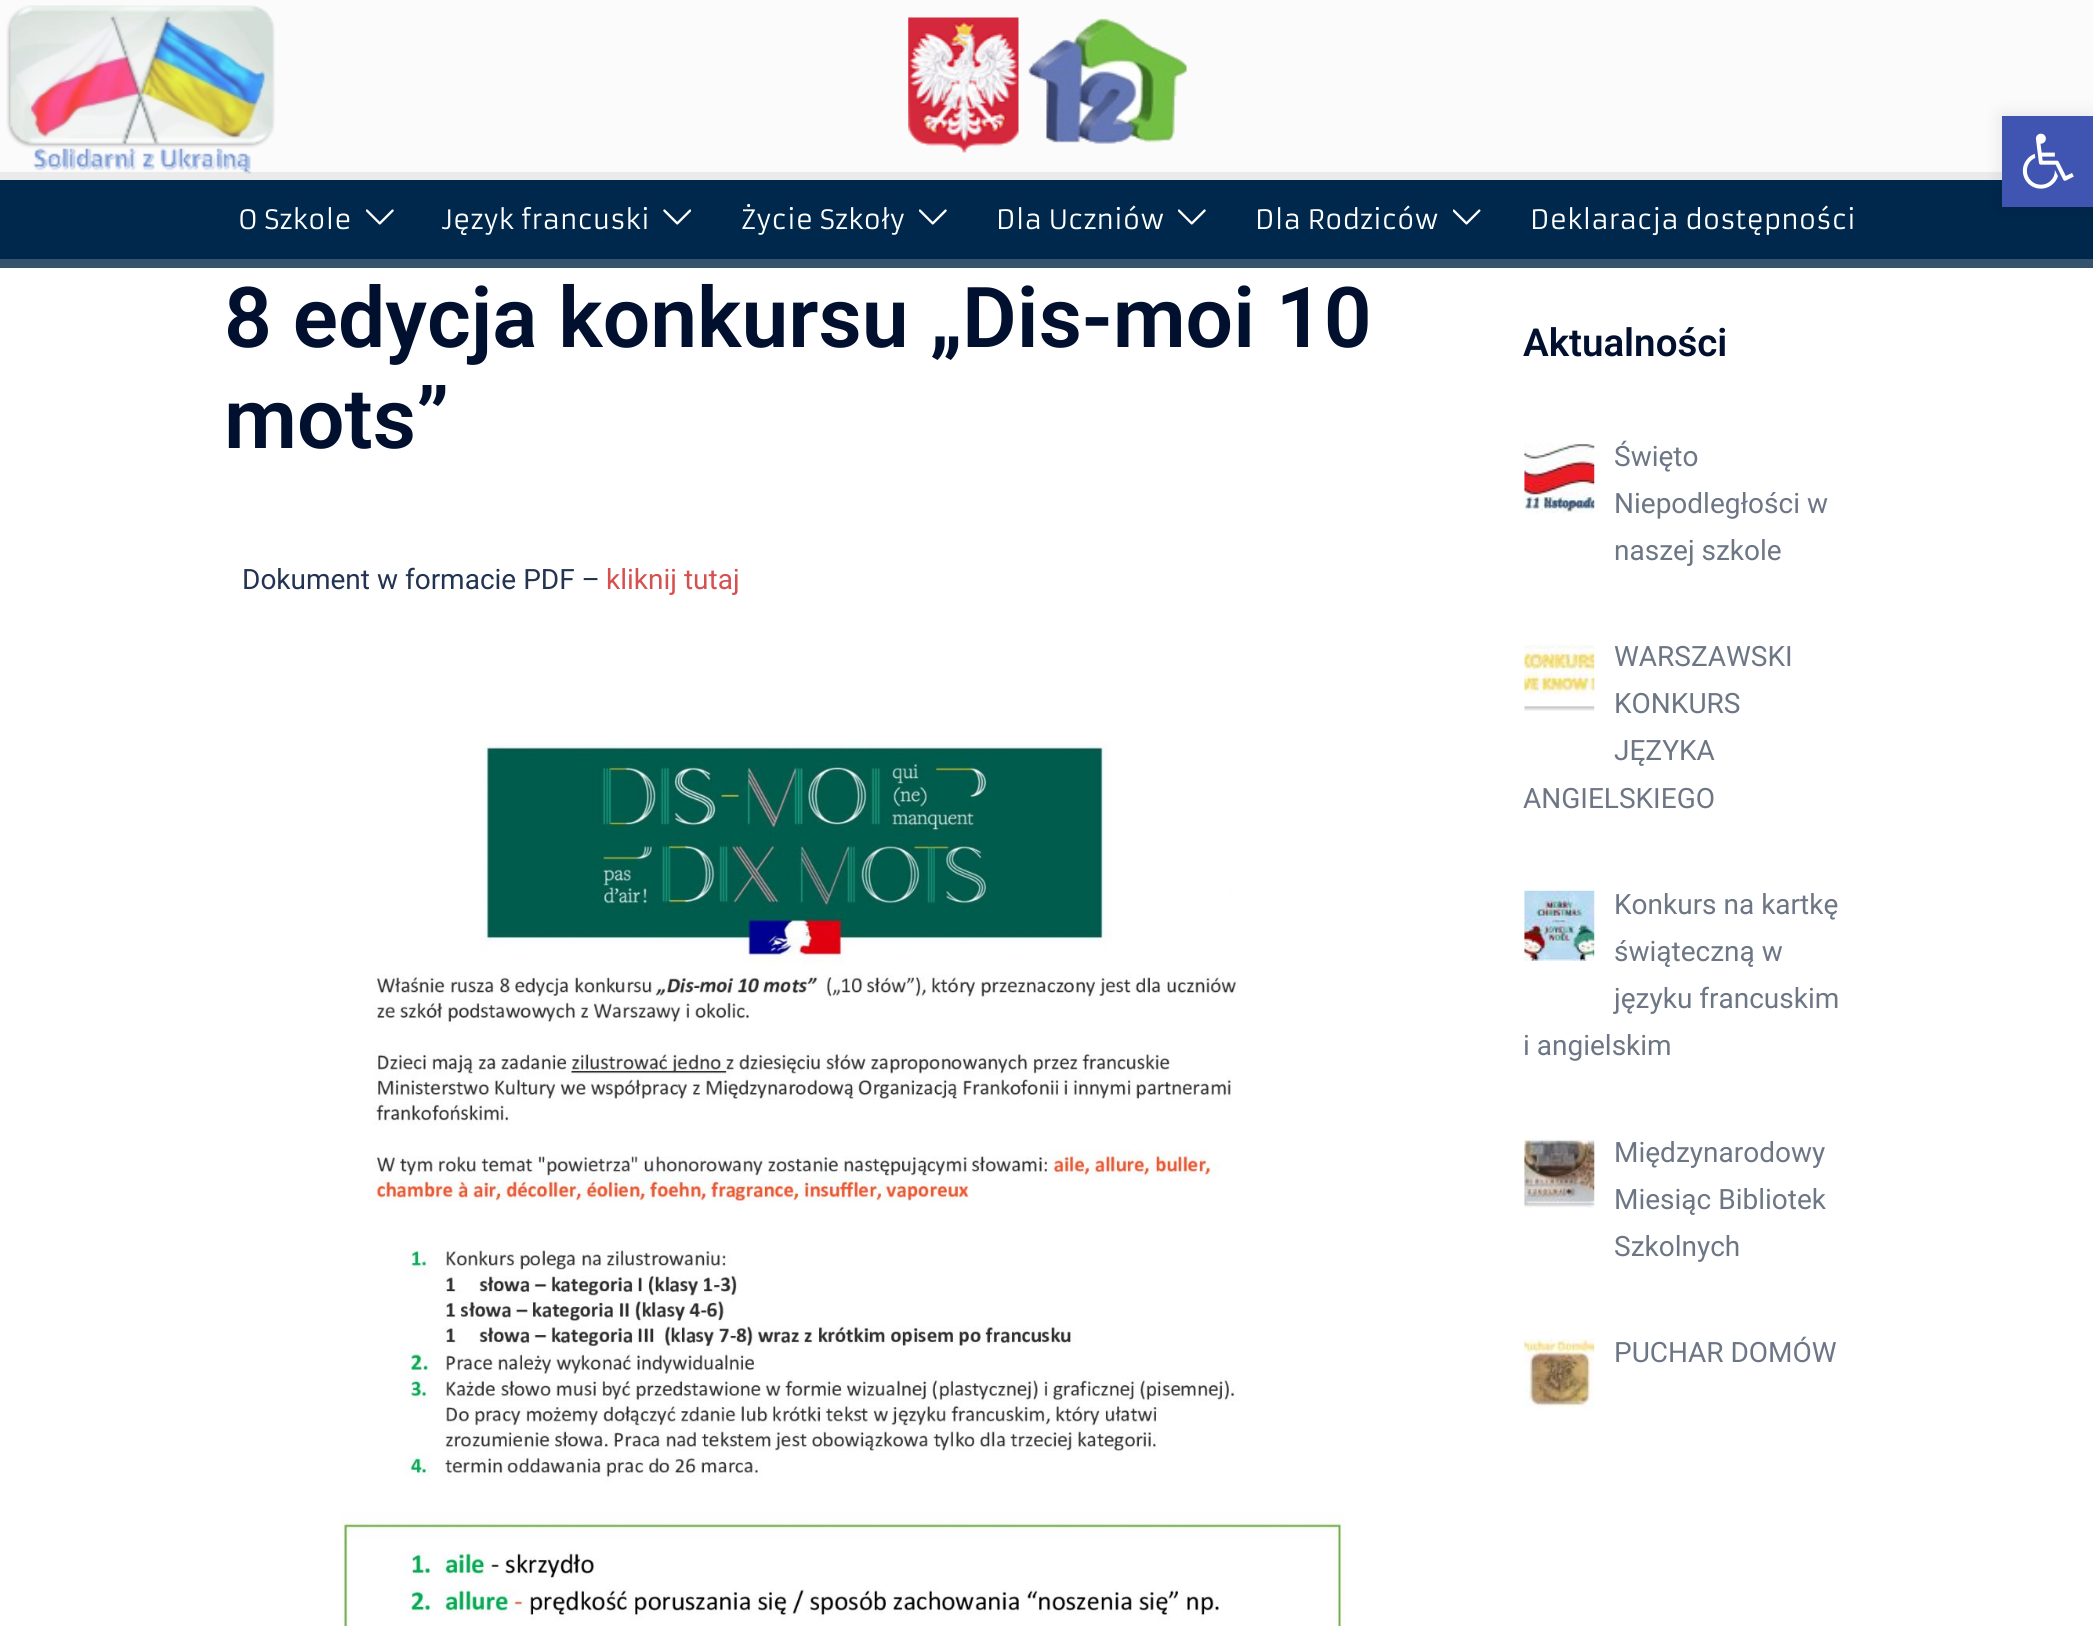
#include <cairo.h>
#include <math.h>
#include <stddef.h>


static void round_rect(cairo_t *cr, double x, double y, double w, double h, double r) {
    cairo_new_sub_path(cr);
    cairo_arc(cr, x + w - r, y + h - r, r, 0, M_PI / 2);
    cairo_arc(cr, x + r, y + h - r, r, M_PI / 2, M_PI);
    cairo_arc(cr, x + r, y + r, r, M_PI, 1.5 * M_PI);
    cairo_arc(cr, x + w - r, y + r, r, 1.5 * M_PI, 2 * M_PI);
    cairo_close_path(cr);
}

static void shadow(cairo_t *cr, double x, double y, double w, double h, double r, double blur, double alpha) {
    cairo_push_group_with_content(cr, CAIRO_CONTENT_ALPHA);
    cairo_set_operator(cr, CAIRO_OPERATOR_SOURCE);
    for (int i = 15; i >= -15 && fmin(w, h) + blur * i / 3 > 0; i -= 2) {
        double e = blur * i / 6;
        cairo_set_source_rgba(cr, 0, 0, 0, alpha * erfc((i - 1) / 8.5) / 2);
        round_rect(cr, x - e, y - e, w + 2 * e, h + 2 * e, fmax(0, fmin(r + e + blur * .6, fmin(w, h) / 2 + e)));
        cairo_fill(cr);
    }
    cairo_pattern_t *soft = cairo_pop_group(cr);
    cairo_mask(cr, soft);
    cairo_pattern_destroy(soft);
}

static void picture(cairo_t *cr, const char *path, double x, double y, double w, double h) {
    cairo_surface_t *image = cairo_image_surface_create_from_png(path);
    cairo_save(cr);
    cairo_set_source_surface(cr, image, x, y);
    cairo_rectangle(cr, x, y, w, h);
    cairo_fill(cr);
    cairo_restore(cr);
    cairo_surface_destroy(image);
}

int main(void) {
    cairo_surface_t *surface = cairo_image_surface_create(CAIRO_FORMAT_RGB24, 2093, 1626);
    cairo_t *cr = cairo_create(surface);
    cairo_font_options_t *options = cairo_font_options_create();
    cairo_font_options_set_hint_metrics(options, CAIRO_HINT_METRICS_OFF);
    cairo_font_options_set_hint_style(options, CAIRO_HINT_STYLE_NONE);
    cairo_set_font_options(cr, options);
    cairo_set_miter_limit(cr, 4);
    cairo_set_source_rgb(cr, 1, 1, 1);
    cairo_paint(cr);
    cairo_set_source_rgb(cr, 0.984, 0.984, 0.984);
    cairo_rectangle(cr, 0, 0, 2093, 180);
    cairo_fill(cr);
    picture(cr, "img1.png", 6, 5, 269, 169);
    cairo_set_source_rgba(cr, 0.757, 0.757, 0.757, 0.28);
    cairo_rectangle(cr, 0, 172, 2002, 8);
    cairo_fill(cr);
    cairo_set_source_rgb(cr, 0, 0.157, 0.298);
    cairo_rectangle(cr, 0, 180, 2093, 79);
    cairo_fill(cr);
    cairo_set_source_rgb(cr, 0, 0, 0);
    shadow(cr, 2002, 116, 91, 91, 0, 9, 0.1);
    cairo_set_source_rgb(cr, 0.251, 0.329, 0.698);
    cairo_rectangle(cr, 2002, 116, 91, 91);
    cairo_fill(cr);
    picture(cr, "img2.png", 2022, 133, 52, 56);
    picture(cr, "img3.png", 908, 17, 279, 136);
    cairo_set_source_rgb(cr, 0.212, 0.325, 0.427);
    cairo_rectangle(cr, 0, 259, 2093, 9);
    cairo_fill(cr);
    cairo_select_font_face(cr, "Armata", CAIRO_FONT_SLANT_NORMAL, CAIRO_FONT_WEIGHT_NORMAL);
    cairo_set_font_size(cr, 26.25);
    cairo_set_source_rgb(cr, 1, 1, 1);
    cairo_move_to(cr, 238, 229);
    cairo_show_text(cr, "O Szkole");
    picture(cr, "img4.png", 366, 209, 28, 16);
    cairo_move_to(cr, 442, 229);
    cairo_show_text(cr, "Język francuski");
    picture(cr, "img5.png", 663, 209, 28, 16);
    cairo_move_to(cr, 741, 229);
    cairo_show_text(cr, "Życie Szkoły");
    picture(cr, "img4.png", 919, 209, 28, 16);
    cairo_move_to(cr, 996, 229);
    cairo_show_text(cr, "Dla Uczniów");
    picture(cr, "img4.png", 1178, 209, 28, 16);
    cairo_move_to(cr, 1255, 229);
    cairo_show_text(cr, "Dla Rodziców");
    picture(cr, "img6.png", 1453, 209, 28, 16);
    cairo_move_to(cr, 1530, 229);
    cairo_show_text(cr, "Deklaracja dostępności");
    cairo_select_font_face(cr, "Roboto SemiBold", CAIRO_FONT_SLANT_NORMAL, CAIRO_FONT_WEIGHT_NORMAL);
    cairo_set_font_size(cr, 84);
    cairo_set_source_rgb(cr, 0, 0.063, 0.18);
    cairo_move_to(cr, 224, 347);
    cairo_show_text(cr, "8 edycja konkursu „Dis-moi 10");
    cairo_move_to(cr, 224, 448);
    cairo_show_text(cr, "mots”");
    cairo_select_font_face(cr, "Roboto", CAIRO_FONT_SLANT_NORMAL, CAIRO_FONT_WEIGHT_NORMAL);
    cairo_set_font_size(cr, 28);
    cairo_set_source_rgb(cr, 0.137, 0.204, 0.322);
    cairo_move_to(cr, 242, 589);
    cairo_show_text(cr, "Dokument w formacie PDF –");
    cairo_set_source_rgb(cr, 0.839, 0.314, 0.314);
    cairo_move_to(cr, 606, 589);
    cairo_show_text(cr, "kliknij tutaj");
    picture(cr, "img7.png", 341, 742, 1004, 884);
    cairo_select_font_face(cr, "Roboto SemiBold", CAIRO_FONT_SLANT_NORMAL, CAIRO_FONT_WEIGHT_NORMAL);
    cairo_set_font_size(cr, 38.5);
    cairo_set_source_rgb(cr, 0, 0.063, 0.18);
    cairo_move_to(cr, 1523, 356);
    cairo_show_text(cr, "Aktualności");
    picture(cr, "img8.png", 1524, 443, 71, 70);
    cairo_select_font_face(cr, "Roboto", CAIRO_FONT_SLANT_NORMAL, CAIRO_FONT_WEIGHT_NORMAL);
    cairo_set_font_size(cr, 28);
    cairo_set_source_rgb(cr, 0.427, 0.463, 0.522);
    cairo_move_to(cr, 1614, 466);
    cairo_show_text(cr, "Święto");
    cairo_move_to(cr, 1614, 513);
    cairo_show_text(cr, "Niepodległości w");
    cairo_move_to(cr, 1614, 560);
    cairo_show_text(cr, "naszej szkole");
    picture(cr, "img9.png", 1524, 644, 71, 67);
    cairo_move_to(cr, 1614, 666);
    cairo_show_text(cr, "WARSZAWSKI");
    cairo_move_to(cr, 1614, 713);
    cairo_show_text(cr, "KONKURS");
    cairo_move_to(cr, 1614, 760);
    cairo_show_text(cr, "JĘZYKA");
    cairo_move_to(cr, 1523, 808);
    cairo_show_text(cr, "ANGIELSKIEGO");
    picture(cr, "img10.png", 1524, 890, 71, 71);
    cairo_move_to(cr, 1614, 914);
    cairo_show_text(cr, "Konkurs na kartkę");
    cairo_move_to(cr, 1614, 961);
    cairo_show_text(cr, "świąteczną w");
    cairo_move_to(cr, 1614, 1008);
    cairo_show_text(cr, "języku francuskim");
    cairo_move_to(cr, 1523, 1055);
    cairo_show_text(cr, "i angielskim");
    picture(cr, "img11.png", 1524, 1139, 71, 69);
    cairo_move_to(cr, 1614, 1162);
    cairo_show_text(cr, "Międzynarodowy");
    cairo_move_to(cr, 1614, 1209);
    cairo_show_text(cr, "Miesiąc Bibliotek");
    cairo_move_to(cr, 1614, 1256);
    cairo_show_text(cr, "Szkolnych");
    picture(cr, "img12.png", 1524, 1338, 71, 71);
    cairo_move_to(cr, 1614, 1362);
    cairo_show_text(cr, "PUCHAR DOMÓW");
    cairo_surface_write_to_png(surface, "page.png");
    cairo_font_options_destroy(options);
    cairo_destroy(cr);
    cairo_surface_destroy(surface);
    return 0;
}
